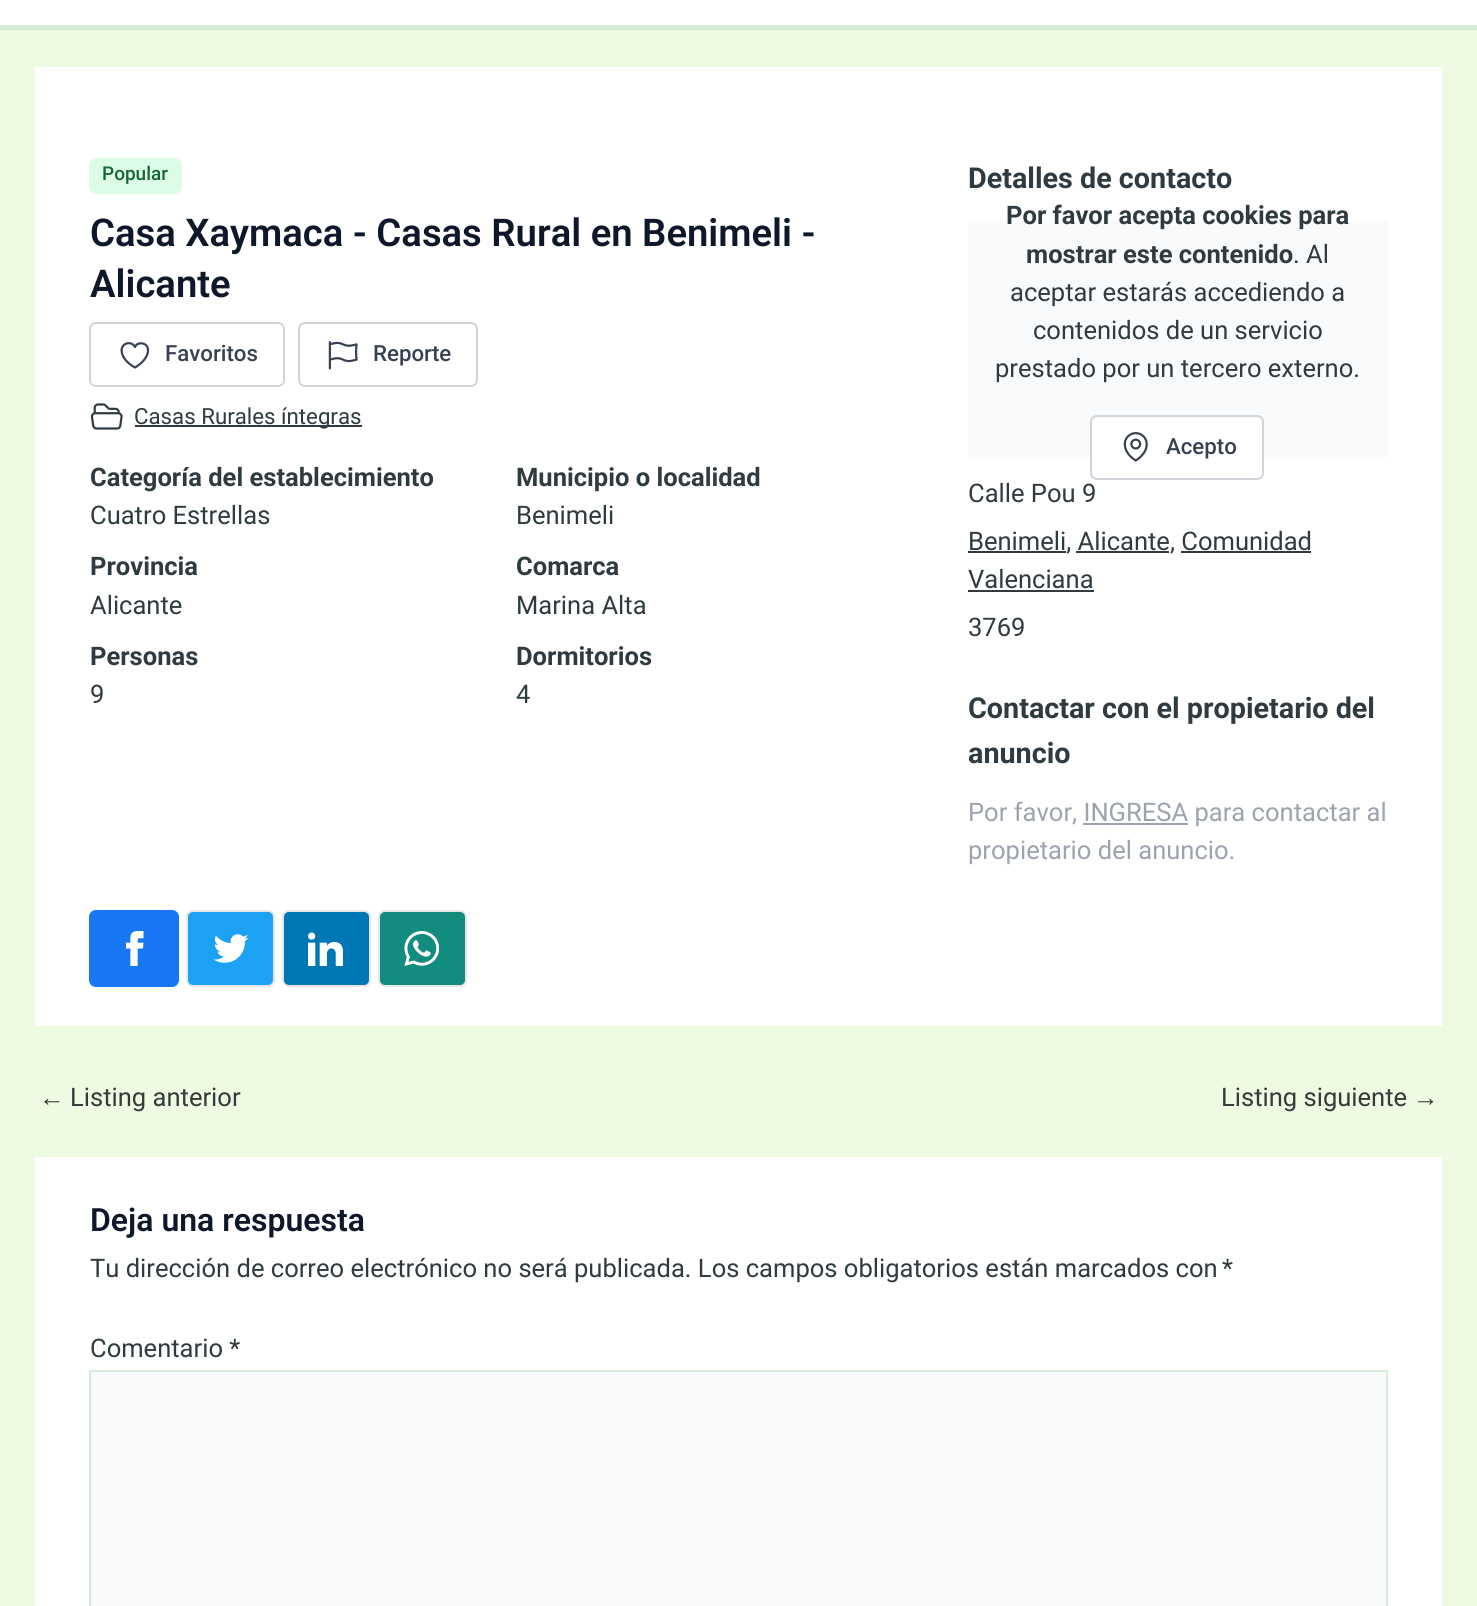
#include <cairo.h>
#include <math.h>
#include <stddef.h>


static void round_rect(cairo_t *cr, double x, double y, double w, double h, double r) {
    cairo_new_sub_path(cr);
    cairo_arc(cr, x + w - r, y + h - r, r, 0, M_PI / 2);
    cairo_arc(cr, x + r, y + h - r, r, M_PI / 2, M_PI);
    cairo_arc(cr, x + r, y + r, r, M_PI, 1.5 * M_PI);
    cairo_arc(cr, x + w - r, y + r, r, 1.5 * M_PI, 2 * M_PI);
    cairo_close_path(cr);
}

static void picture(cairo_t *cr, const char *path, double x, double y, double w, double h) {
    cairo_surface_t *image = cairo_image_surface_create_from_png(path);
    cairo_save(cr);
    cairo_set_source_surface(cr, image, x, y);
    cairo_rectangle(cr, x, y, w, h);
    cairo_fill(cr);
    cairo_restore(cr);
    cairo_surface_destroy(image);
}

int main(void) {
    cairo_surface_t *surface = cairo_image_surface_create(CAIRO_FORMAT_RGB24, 1477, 1606);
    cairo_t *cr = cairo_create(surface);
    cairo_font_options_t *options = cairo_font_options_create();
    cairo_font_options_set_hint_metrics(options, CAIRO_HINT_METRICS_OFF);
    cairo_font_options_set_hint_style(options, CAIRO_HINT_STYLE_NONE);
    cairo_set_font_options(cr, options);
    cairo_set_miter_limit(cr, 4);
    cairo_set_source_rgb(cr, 0.929, 0.984, 0.886);
    cairo_paint(cr);
    cairo_set_source_rgb(cr, 1, 1, 1);
    cairo_rectangle(cr, 0, 0, 1477, 25);
    cairo_fill(cr);
    cairo_set_source_rgb(cr, 0.835, 0.918, 0.847);
    cairo_rectangle(cr, 0, 25, 1477, 5);
    cairo_fill(cr);
    cairo_set_source_rgb(cr, 1, 1, 1);
    cairo_rectangle(cr, 35, 67, 1407, 959);
    cairo_fill(cr);
    cairo_set_source_rgb(cr, 0.863, 0.988, 0.906);
    round_rect(cr, 89, 158, 93, 36, 7);
    cairo_fill(cr);
    cairo_select_font_face(cr, "Roboto Medium", CAIRO_FONT_SLANT_NORMAL, CAIRO_FONT_WEIGHT_NORMAL);
    cairo_set_font_size(cr, 19);
    cairo_set_source_rgb(cr, 0.086, 0.396, 0.204);
    cairo_move_to(cr, 102, 180);
    cairo_show_text(cr, "Popular");
    cairo_select_font_face(cr, "Roboto SemiBold", CAIRO_FONT_SLANT_NORMAL, CAIRO_FONT_WEIGHT_NORMAL);
    cairo_set_font_size(cr, 38.25);
    cairo_set_source_rgb(cr, 0.059, 0.09, 0.165);
    cairo_move_to(cr, 90, 246);
    cairo_show_text(cr, "Casa Xaymaca - Casas Rural en Benimeli -");
    cairo_move_to(cr, 90, 297);
    cairo_show_text(cr, "Alicante");
    round_rect(cr, 90, 323, 194, 63, 6);
    cairo_set_source_rgb(cr, 0.82, 0.835, 0.859);
    cairo_stroke(cr);
    cairo_new_path(cr);
    cairo_move_to(cr, 148, 350);
    cairo_curve_to(cr, 148, 342.5, 137.5, 341, 135, 347);
    cairo_curve_to(cr, 131, 339, 116.5, 344, 123.5, 357);
    cairo_curve_to(cr, 126, 361.5, 130.5, 365, 135, 367.5);
    cairo_curve_to(cr, 135, 367.5, 148, 360.5, 148, 350);
    cairo_close_path(cr);
    cairo_set_source_rgb(cr, 0.216, 0.255, 0.318);
    cairo_set_line_width(cr, 2.2);
    cairo_set_line_cap(cr, CAIRO_LINE_CAP_ROUND);
    cairo_set_line_join(cr, CAIRO_LINE_JOIN_ROUND);
    cairo_stroke(cr);
    cairo_select_font_face(cr, "Roboto Medium", CAIRO_FONT_SLANT_NORMAL, CAIRO_FONT_WEIGHT_NORMAL);
    cairo_set_font_size(cr, 22.25);
    cairo_move_to(cr, 165, 361);
    cairo_show_text(cr, "Favoritos");
    round_rect(cr, 299, 323, 178, 63, 6);
    cairo_set_source_rgb(cr, 0.82, 0.835, 0.859);
    cairo_set_line_width(cr, 2);
    cairo_set_line_cap(cr, CAIRO_LINE_CAP_BUTT);
    cairo_set_line_join(cr, CAIRO_LINE_JOIN_MITER);
    cairo_stroke(cr);
    picture(cr, "img1.png", 328, 341, 30, 29);
    cairo_set_source_rgb(cr, 0.216, 0.255, 0.318);
    cairo_move_to(cr, 373, 361);
    cairo_show_text(cr, "Reporte");
    picture(cr, "img2.png", 90, 403, 33, 27);
    cairo_set_source_rgb(cr, 0.184, 0.231, 0.251);
    cairo_rectangle(cr, 135, 425, 227, 2);
    cairo_fill(cr);
    cairo_select_font_face(cr, "Roboto", CAIRO_FONT_SLANT_NORMAL, CAIRO_FONT_WEIGHT_NORMAL);
    cairo_move_to(cr, 134, 424);
    cairo_show_text(cr, "Casas Rurales íntegras");
    cairo_select_font_face(cr, "Roboto", CAIRO_FONT_SLANT_NORMAL, CAIRO_FONT_WEIGHT_BOLD);
    cairo_set_font_size(cr, 25.55);
    cairo_move_to(cr, 90, 486);
    cairo_show_text(cr, "Categoría del establecimiento");
    cairo_select_font_face(cr, "Roboto", CAIRO_FONT_SLANT_NORMAL, CAIRO_FONT_WEIGHT_NORMAL);
    cairo_move_to(cr, 90, 524);
    cairo_show_text(cr, "Cuatro Estrellas");
    cairo_select_font_face(cr, "Roboto", CAIRO_FONT_SLANT_NORMAL, CAIRO_FONT_WEIGHT_BOLD);
    cairo_move_to(cr, 516, 486);
    cairo_show_text(cr, "Municipio o localidad");
    cairo_select_font_face(cr, "Roboto", CAIRO_FONT_SLANT_NORMAL, CAIRO_FONT_WEIGHT_NORMAL);
    cairo_move_to(cr, 516, 524);
    cairo_show_text(cr, "Benimeli");
    cairo_select_font_face(cr, "Roboto", CAIRO_FONT_SLANT_NORMAL, CAIRO_FONT_WEIGHT_BOLD);
    cairo_move_to(cr, 90, 575);
    cairo_show_text(cr, "Provincia");
    cairo_select_font_face(cr, "Roboto", CAIRO_FONT_SLANT_NORMAL, CAIRO_FONT_WEIGHT_NORMAL);
    cairo_move_to(cr, 90, 614);
    cairo_show_text(cr, "Alicante");
    cairo_select_font_face(cr, "Roboto", CAIRO_FONT_SLANT_NORMAL, CAIRO_FONT_WEIGHT_BOLD);
    cairo_move_to(cr, 516, 575);
    cairo_show_text(cr, "Comarca");
    cairo_select_font_face(cr, "Roboto", CAIRO_FONT_SLANT_NORMAL, CAIRO_FONT_WEIGHT_NORMAL);
    cairo_move_to(cr, 516, 614);
    cairo_show_text(cr, "Marina Alta");
    cairo_select_font_face(cr, "Roboto", CAIRO_FONT_SLANT_NORMAL, CAIRO_FONT_WEIGHT_BOLD);
    cairo_move_to(cr, 90, 665);
    cairo_show_text(cr, "Personas");
    cairo_select_font_face(cr, "Roboto", CAIRO_FONT_SLANT_NORMAL, CAIRO_FONT_WEIGHT_NORMAL);
    cairo_move_to(cr, 90, 703);
    cairo_show_text(cr, "9");
    cairo_select_font_face(cr, "Roboto", CAIRO_FONT_SLANT_NORMAL, CAIRO_FONT_WEIGHT_BOLD);
    cairo_move_to(cr, 516, 665);
    cairo_show_text(cr, "Dormitorios");
    cairo_select_font_face(cr, "Roboto", CAIRO_FONT_SLANT_NORMAL, CAIRO_FONT_WEIGHT_NORMAL);
    cairo_move_to(cr, 516, 703);
    cairo_show_text(cr, "4");
    cairo_select_font_face(cr, "Roboto", CAIRO_FONT_SLANT_NORMAL, CAIRO_FONT_WEIGHT_BOLD);
    cairo_set_font_size(cr, 28.75);
    cairo_move_to(cr, 968, 188);
    cairo_show_text(cr, "Detalles de contacto");
    cairo_set_source_rgb(cr, 0.976, 0.98, 0.984);
    cairo_rectangle(cr, 968, 221, 420, 236);
    cairo_fill(cr);
    cairo_set_font_size(cr, 25.55);
    cairo_set_source_rgb(cr, 0.184, 0.231, 0.251);
    cairo_move_to(cr, 1006, 224);
    cairo_show_text(cr, "Por favor acepta cookies para");
    cairo_move_to(cr, 1026, 263);
    cairo_show_text(cr, "mostrar este contenido");
    cairo_select_font_face(cr, "Roboto", CAIRO_FONT_SLANT_NORMAL, CAIRO_FONT_WEIGHT_NORMAL);
    cairo_move_to(cr, 1293, 263);
    cairo_show_text(cr, ". Al");
    cairo_move_to(cr, 1010, 301);
    cairo_show_text(cr, "aceptar estarás accediendo a");
    cairo_move_to(cr, 1033, 339);
    cairo_show_text(cr, "contenidos de un servicio");
    cairo_move_to(cr, 995, 377);
    cairo_show_text(cr, "prestado por un tercero externo.");
    cairo_set_source_rgb(cr, 1, 1, 1);
    round_rect(cr, 1091, 416, 172, 63, 6);
    cairo_fill_preserve(cr);
    cairo_set_source_rgb(cr, 0.82, 0.835, 0.859);
    cairo_stroke(cr);
    picture(cr, "img3.png", 1123, 432, 25, 30);
    cairo_select_font_face(cr, "Roboto Medium", CAIRO_FONT_SLANT_NORMAL, CAIRO_FONT_WEIGHT_NORMAL);
    cairo_set_font_size(cr, 22.25);
    cairo_set_source_rgb(cr, 0.216, 0.255, 0.318);
    cairo_move_to(cr, 1166, 454);
    cairo_show_text(cr, "Acepto");
    cairo_select_font_face(cr, "Roboto", CAIRO_FONT_SLANT_NORMAL, CAIRO_FONT_WEIGHT_NORMAL);
    cairo_set_font_size(cr, 25.55);
    cairo_set_source_rgb(cr, 0.184, 0.231, 0.251);
    cairo_move_to(cr, 968, 502);
    cairo_show_text(cr, "Calle Pou 9");
    cairo_rectangle(cr, 968, 551, 98, 2);
    cairo_fill(cr);
    cairo_move_to(cr, 968, 550);
    cairo_show_text(cr, "Benimeli, Alicante, Comunidad");
    cairo_rectangle(cr, 1076, 551, 93, 2);
    cairo_fill(cr);
    cairo_move_to(cr, 968, 588);
    cairo_show_text(cr, "Valenciana");
    cairo_rectangle(cr, 1181, 551, 130, 2);
    cairo_fill(cr);
    cairo_rectangle(cr, 968, 590, 126, 2);
    cairo_fill(cr);
    cairo_move_to(cr, 968, 636);
    cairo_show_text(cr, "3769");
    cairo_select_font_face(cr, "Roboto", CAIRO_FONT_SLANT_NORMAL, CAIRO_FONT_WEIGHT_BOLD);
    cairo_set_font_size(cr, 28.75);
    cairo_move_to(cr, 968, 718);
    cairo_show_text(cr, "Contactar con el propietario del");
    cairo_move_to(cr, 968, 763);
    cairo_show_text(cr, "anuncio");
    cairo_select_font_face(cr, "Roboto", CAIRO_FONT_SLANT_NORMAL, CAIRO_FONT_WEIGHT_NORMAL);
    cairo_set_font_size(cr, 25.55);
    cairo_set_source_rgb(cr, 0.612, 0.639, 0.686);
    cairo_move_to(cr, 968, 821);
    cairo_show_text(cr, "Por favor, INGRESA para contactar al");
    cairo_rectangle(cr, 1083, 823, 105, 2);
    cairo_fill(cr);
    cairo_move_to(cr, 968, 859);
    cairo_show_text(cr, "propietario del anuncio.");
    cairo_set_source_rgb(cr, 0.094, 0.467, 0.949);
    round_rect(cr, 89, 910, 90, 77, 7);
    cairo_fill(cr);
    picture(cr, "img4.png", 126, 931, 18, 35);
    cairo_set_source_rgb(cr, 0.114, 0.631, 0.949);
    round_rect(cr, 187, 911, 87, 75, 6);
    cairo_fill_preserve(cr);
    cairo_set_source_rgb(cr, 0.898, 0.906, 0.922);
    cairo_stroke(cr);
    picture(cr, "img5.png", 214, 934, 35, 29);
    cairo_set_source_rgb(cr, 0, 0.467, 0.71);
    round_rect(cr, 283, 911, 87, 75, 6);
    cairo_fill_preserve(cr);
    cairo_set_source_rgb(cr, 0.898, 0.906, 0.922);
    cairo_stroke(cr);
    picture(cr, "img6.png", 308, 932, 35, 34);
    cairo_set_source_rgb(cr, 0.071, 0.549, 0.494);
    round_rect(cr, 379, 911, 87, 75, 6);
    cairo_fill_preserve(cr);
    cairo_set_source_rgb(cr, 0.898, 0.906, 0.922);
    cairo_stroke(cr);
    picture(cr, "img7.png", 404, 931, 35, 35);
    cairo_select_font_face(cr, "Liberation Sans", CAIRO_FONT_SLANT_NORMAL, CAIRO_FONT_WEIGHT_NORMAL);
    cairo_set_source_rgb(cr, 0.22, 0.224, 0.22);
    cairo_move_to(cr, 39, 1106);
    cairo_show_text(cr, "←");
    cairo_select_font_face(cr, "Roboto", CAIRO_FONT_SLANT_NORMAL, CAIRO_FONT_WEIGHT_NORMAL);
    cairo_move_to(cr, 70, 1106);
    cairo_show_text(cr, "Listing anterior");
    cairo_move_to(cr, 1221, 1106);
    cairo_show_text(cr, "Listing siguiente");
    cairo_select_font_face(cr, "Liberation Sans", CAIRO_FONT_SLANT_NORMAL, CAIRO_FONT_WEIGHT_NORMAL);
    cairo_move_to(cr, 1413, 1106);
    cairo_show_text(cr, "→");
    cairo_set_source_rgb(cr, 1, 1, 1);
    cairo_rectangle(cr, 35, 1157, 1407, 449);
    cairo_fill(cr);
    cairo_select_font_face(cr, "Roboto SemiBold", CAIRO_FONT_SLANT_NORMAL, CAIRO_FONT_WEIGHT_NORMAL);
    cairo_set_font_size(cr, 32);
    cairo_set_source_rgb(cr, 0.059, 0.09, 0.165);
    cairo_move_to(cr, 90, 1231);
    cairo_show_text(cr, "Deja una respuesta");
    cairo_select_font_face(cr, "Roboto", CAIRO_FONT_SLANT_NORMAL, CAIRO_FONT_WEIGHT_NORMAL);
    cairo_set_font_size(cr, 25.55);
    cairo_set_source_rgb(cr, 0.184, 0.231, 0.251);
    cairo_move_to(cr, 90, 1277);
    cairo_show_text(cr, "Tu dirección de correo electrónico no será publicada. Los campos obligatorios están marcados con");
    cairo_move_to(cr, 1222, 1277);
    cairo_show_text(cr, "*");
    cairo_move_to(cr, 90, 1357);
    cairo_show_text(cr, "Comentario *");
    cairo_set_source_rgb(cr, 0.976, 0.98, 0.984);
    cairo_rectangle(cr, 90, 1371, 1297, 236);
    cairo_fill_preserve(cr);
    cairo_set_source_rgb(cr, 0.835, 0.918, 0.847);
    cairo_stroke(cr);
    cairo_surface_write_to_png(surface, "page.png");
    cairo_font_options_destroy(options);
    cairo_destroy(cr);
    cairo_surface_destroy(surface);
    return 0;
}
